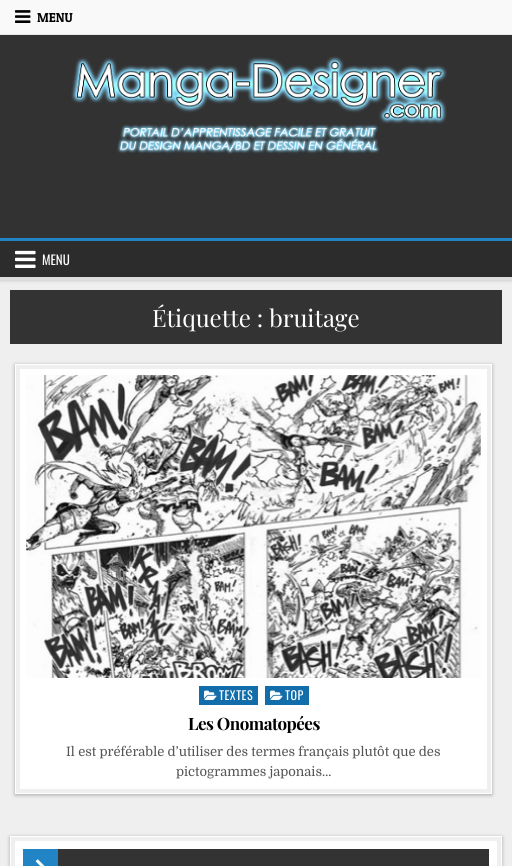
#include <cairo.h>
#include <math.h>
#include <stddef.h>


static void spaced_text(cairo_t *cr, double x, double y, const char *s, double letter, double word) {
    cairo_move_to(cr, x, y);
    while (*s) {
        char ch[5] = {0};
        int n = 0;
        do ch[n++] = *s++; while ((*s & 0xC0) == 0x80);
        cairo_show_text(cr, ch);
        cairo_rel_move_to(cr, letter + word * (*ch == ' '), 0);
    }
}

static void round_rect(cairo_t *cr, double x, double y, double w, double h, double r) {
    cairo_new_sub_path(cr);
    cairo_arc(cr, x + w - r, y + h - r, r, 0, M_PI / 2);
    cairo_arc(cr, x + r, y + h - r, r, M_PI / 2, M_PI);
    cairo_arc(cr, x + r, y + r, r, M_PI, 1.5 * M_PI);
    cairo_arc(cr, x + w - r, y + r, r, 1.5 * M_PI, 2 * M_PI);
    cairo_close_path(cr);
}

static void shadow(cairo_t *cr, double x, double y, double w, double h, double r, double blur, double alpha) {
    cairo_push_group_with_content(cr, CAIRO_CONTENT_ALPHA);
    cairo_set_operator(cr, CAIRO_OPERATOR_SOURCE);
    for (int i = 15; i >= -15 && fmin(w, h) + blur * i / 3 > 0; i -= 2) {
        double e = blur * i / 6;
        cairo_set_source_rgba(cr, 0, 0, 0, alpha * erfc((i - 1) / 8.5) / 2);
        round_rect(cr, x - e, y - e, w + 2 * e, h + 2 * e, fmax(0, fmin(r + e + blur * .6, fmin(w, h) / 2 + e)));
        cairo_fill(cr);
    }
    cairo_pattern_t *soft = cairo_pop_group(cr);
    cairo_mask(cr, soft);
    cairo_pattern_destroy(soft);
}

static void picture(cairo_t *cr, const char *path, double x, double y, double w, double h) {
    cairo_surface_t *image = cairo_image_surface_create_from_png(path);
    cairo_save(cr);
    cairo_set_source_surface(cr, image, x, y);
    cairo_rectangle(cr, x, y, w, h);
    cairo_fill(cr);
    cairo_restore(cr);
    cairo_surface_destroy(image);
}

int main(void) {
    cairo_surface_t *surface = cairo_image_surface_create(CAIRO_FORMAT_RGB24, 512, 866);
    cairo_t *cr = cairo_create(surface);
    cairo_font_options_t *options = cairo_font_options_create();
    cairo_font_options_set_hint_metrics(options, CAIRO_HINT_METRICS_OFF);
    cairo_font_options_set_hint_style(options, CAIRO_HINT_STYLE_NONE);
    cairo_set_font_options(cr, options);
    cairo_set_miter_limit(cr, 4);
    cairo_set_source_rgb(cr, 0.937, 0.937, 0.937);
    cairo_paint(cr);
    cairo_set_source_rgb(cr, 0.973, 0.973, 0.973);
    cairo_rectangle(cr, 0, 0, 512, 34);
    cairo_fill(cr);
    cairo_set_source_rgb(cr, 0.898, 0.898, 0.898);
    cairo_rectangle(cr, 0, 34, 512, 1);
    cairo_fill(cr);
    picture(cr, "img1.png", 15, 10, 16, 13);
    cairo_select_font_face(cr, "Patua One", CAIRO_FONT_SLANT_NORMAL, CAIRO_FONT_WEIGHT_NORMAL);
    cairo_set_font_size(cr, 13);
    cairo_set_source_rgb(cr, 0, 0, 0);
    cairo_move_to(cr, 37, 22);
    cairo_show_text(cr, "MENU");
    cairo_set_source_rgb(cr, 0, 0, 0);
    shadow(cr, 0, 239, 512, 42, 0, 1.5, 0.15);
    cairo_set_source_rgb(cr, 0.196, 0.196, 0.2);
    cairo_rectangle(cr, 0, 35, 512, 203);
    cairo_fill(cr);
    picture(cr, "img2.png", 71, 56, 376, 98);
    cairo_set_source_rgb(cr, 0.173, 0.173, 0.173);
    cairo_rectangle(cr, 0, 241, 512, 36);
    cairo_fill(cr);
    cairo_set_source_rgb(cr, 0.129, 0.522, 0.773);
    cairo_rectangle(cr, 0, 238, 512, 3);
    cairo_fill(cr);
    cairo_set_source_rgb(cr, 0.867, 0.867, 0.867);
    cairo_rectangle(cr, 0, 277, 512, 3);
    cairo_fill(cr);
    picture(cr, "img3.png", 15, 250, 21, 18);
    cairo_select_font_face(cr, "Oswald", CAIRO_FONT_SLANT_NORMAL, CAIRO_FONT_WEIGHT_NORMAL);
    cairo_set_source_rgb(cr, 1, 1, 1);
    cairo_move_to(cr, 42, 265);
    cairo_show_text(cr, "MENU");
    cairo_set_source_rgb(cr, 0.2, 0.2, 0.2);
    cairo_rectangle(cr, 10, 290, 492, 54);
    cairo_fill(cr);
    cairo_select_font_face(cr, "Playfair Display", CAIRO_FONT_SLANT_NORMAL, CAIRO_FONT_WEIGHT_NORMAL);
    cairo_set_font_size(cr, 24);
    cairo_set_source_rgb(cr, 1, 1, 1);
    cairo_move_to(cr, 152, 327);
    cairo_show_text(cr, "Étiquette : bruitage");
    cairo_set_source_rgb(cr, 0, 0, 0);
    shadow(cr, 15, 365, 477, 430, 0, 2, 0.3);
    cairo_set_source_rgb(cr, 1, 1, 1);
    cairo_rectangle(cr, 15, 364, 477, 430);
    cairo_fill(cr);
    cairo_rectangle(cr, 18, 367, 471, 424);
    cairo_set_source_rgb(cr, 0.937, 0.937, 0.937);
    cairo_set_line_width(cr, 4);
    cairo_stroke(cr);
    picture(cr, "img4.png", 26, 375, 455, 303);
    cairo_set_source_rgb(cr, 0.067, 0.431, 0.671);
    cairo_rectangle(cr, 199, 686, 59, 19);
    cairo_fill(cr);
    picture(cr, "img5.png", 204, 690, 13, 10);
    cairo_select_font_face(cr, "Oswald", CAIRO_FONT_SLANT_NORMAL, CAIRO_FONT_WEIGHT_NORMAL);
    cairo_set_font_size(cr, 12);
    cairo_set_source_rgb(cr, 1, 1, 1);
    spaced_text(cr, 219, 700, "TEXTES", 0.5, 0);
    cairo_set_source_rgb(cr, 0.067, 0.431, 0.671);
    cairo_rectangle(cr, 265, 686, 44, 19);
    cairo_fill(cr);
    picture(cr, "img5.png", 270, 690, 13, 10);
    cairo_set_source_rgb(cr, 1, 1, 1);
    spaced_text(cr, 285, 700, "TOP", 0.5, 0);
    cairo_select_font_face(cr, "Playfair Display", CAIRO_FONT_SLANT_NORMAL, CAIRO_FONT_WEIGHT_BOLD);
    cairo_set_font_size(cr, 17);
    cairo_set_source_rgb(cr, 0, 0, 0);
    spaced_text(cr, 188, 730, "Les Onomatopées", -0.5, 0);
    cairo_select_font_face(cr, "Domine", CAIRO_FONT_SLANT_NORMAL, CAIRO_FONT_WEIGHT_NORMAL);
    cairo_set_font_size(cr, 13);
    cairo_set_source_rgb(cr, 0.333, 0.333, 0.333);
    cairo_move_to(cr, 66, 756);
    cairo_show_text(cr, "Il est préférable d’utiliser des termes français plutôt que des");
    cairo_move_to(cr, 176, 776);
    cairo_show_text(cr, "pictogrammes japonais…");
    cairo_set_source_rgb(cr, 0, 0, 0);
    shadow(cr, 10, 837, 492, 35, 0, 2, 0.3);
    cairo_set_source_rgb(cr, 1, 1, 1);
    cairo_rectangle(cr, 10, 836, 492, 30);
    cairo_fill(cr);
    cairo_rectangle(cr, 13, 839, 486, 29);
    cairo_set_source_rgb(cr, 0.937, 0.937, 0.937);
    cairo_stroke(cr);
    cairo_set_source_rgb(cr, 0.2, 0.2, 0.2);
    cairo_rectangle(cr, 58, 849, 431, 17);
    cairo_fill(cr);
    cairo_set_source_rgb(cr, 0.129, 0.522, 0.773);
    cairo_rectangle(cr, 23, 849, 35, 17);
    cairo_fill(cr);
    picture(cr, "img6.png", 35, 859, 10, 7);
    cairo_surface_write_to_png(surface, "page.png");
    cairo_font_options_destroy(options);
    cairo_destroy(cr);
    cairo_surface_destroy(surface);
    return 0;
}
